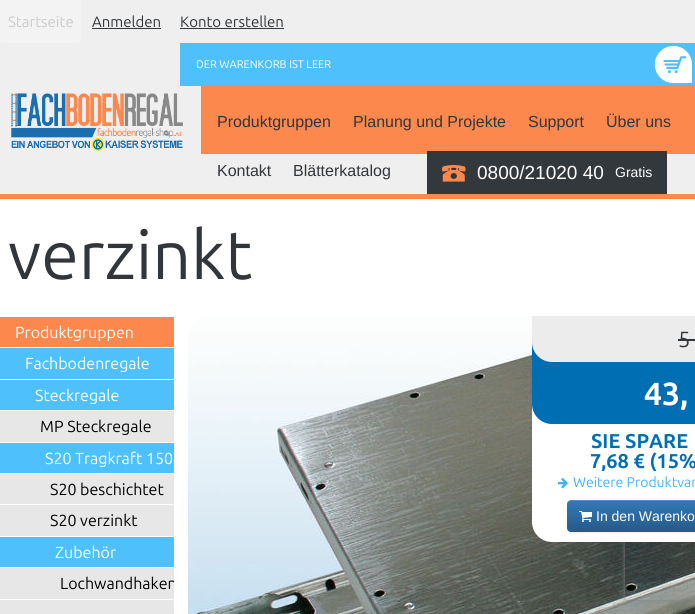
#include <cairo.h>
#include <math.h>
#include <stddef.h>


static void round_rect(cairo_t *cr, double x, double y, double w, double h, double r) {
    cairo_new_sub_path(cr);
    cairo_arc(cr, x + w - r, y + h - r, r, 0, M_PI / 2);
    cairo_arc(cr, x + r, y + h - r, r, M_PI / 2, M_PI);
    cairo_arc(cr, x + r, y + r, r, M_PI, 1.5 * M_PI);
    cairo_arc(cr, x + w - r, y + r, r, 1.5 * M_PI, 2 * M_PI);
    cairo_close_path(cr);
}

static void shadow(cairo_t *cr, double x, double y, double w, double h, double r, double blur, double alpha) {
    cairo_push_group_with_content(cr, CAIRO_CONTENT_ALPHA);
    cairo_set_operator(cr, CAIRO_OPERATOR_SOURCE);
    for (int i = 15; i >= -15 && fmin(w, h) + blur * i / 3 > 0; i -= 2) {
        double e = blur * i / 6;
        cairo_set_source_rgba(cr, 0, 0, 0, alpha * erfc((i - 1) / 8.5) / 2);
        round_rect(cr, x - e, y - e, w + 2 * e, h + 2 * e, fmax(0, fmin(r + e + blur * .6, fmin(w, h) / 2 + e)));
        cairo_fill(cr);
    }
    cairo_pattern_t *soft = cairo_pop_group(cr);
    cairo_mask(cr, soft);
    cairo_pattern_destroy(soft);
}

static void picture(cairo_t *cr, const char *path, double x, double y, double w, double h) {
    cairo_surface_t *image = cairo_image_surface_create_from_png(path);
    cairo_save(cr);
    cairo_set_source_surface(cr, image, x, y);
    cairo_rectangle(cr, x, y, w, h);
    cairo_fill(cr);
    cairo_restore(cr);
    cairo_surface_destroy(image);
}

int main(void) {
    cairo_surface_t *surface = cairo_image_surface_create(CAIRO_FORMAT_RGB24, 695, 614);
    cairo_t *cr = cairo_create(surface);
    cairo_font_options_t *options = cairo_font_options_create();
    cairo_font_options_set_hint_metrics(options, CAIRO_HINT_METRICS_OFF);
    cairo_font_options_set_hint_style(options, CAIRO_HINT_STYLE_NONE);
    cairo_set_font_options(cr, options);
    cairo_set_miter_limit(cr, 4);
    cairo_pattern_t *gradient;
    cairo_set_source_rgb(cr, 1, 1, 1);
    cairo_paint(cr);
    cairo_set_source_rgb(cr, 0.937, 0.937, 0.937);
    cairo_rectangle(cr, 0, 0, 695, 194);
    cairo_fill(cr);
    cairo_set_source_rgb(cr, 0.988, 0.533, 0.306);
    cairo_rectangle(cr, 0, 194, 695, 5);
    cairo_fill(cr);
    cairo_set_source_rgb(cr, 0.953, 0.953, 0.953);
    round_rect(cr, 0, 0, 81, 43, 3);
    cairo_fill(cr);
    cairo_select_font_face(cr, "Ubuntu", CAIRO_FONT_SLANT_NORMAL, CAIRO_FONT_WEIGHT_NORMAL);
    cairo_set_font_size(cr, 15);
    cairo_set_source_rgb(cr, 0.8, 0.8, 0.8);
    cairo_move_to(cr, 8, 27);
    cairo_show_text(cr, "Startseite");
    cairo_set_source_rgb(cr, 0.196, 0.212, 0.227);
    cairo_move_to(cr, 92, 27);
    cairo_show_text(cr, "Anmelden");
    cairo_set_source_rgb(cr, 0.2, 0.22, 0.235);
    cairo_rectangle(cr, 92, 28, 69, 1);
    cairo_fill(cr);
    cairo_set_source_rgb(cr, 0.196, 0.212, 0.227);
    cairo_move_to(cr, 180, 27);
    cairo_show_text(cr, "Konto erstellen");
    cairo_set_source_rgb(cr, 0.2, 0.22, 0.235);
    cairo_rectangle(cr, 180, 28, 104, 1);
    cairo_fill(cr);
    cairo_set_source_rgb(cr, 0.306, 0.757, 0.988);
    cairo_rectangle(cr, 180, 43, 515, 43);
    cairo_fill(cr);
    picture(cr, "img1.png", 654, 45, 38, 38);
    cairo_set_font_size(cr, 11);
    cairo_set_source_rgb(cr, 1, 1, 1);
    cairo_move_to(cr, 196, 68);
    cairo_show_text(cr, "DER WARENKORB IST LEER");
    cairo_set_source_rgb(cr, 0.988, 0.533, 0.306);
    cairo_rectangle(cr, 201, 86, 494, 68);
    cairo_fill(cr);
    picture(cr, "img2.png", 11, 93, 172, 58);
    cairo_select_font_face(cr, "Liberation Sans", CAIRO_FONT_SLANT_NORMAL, CAIRO_FONT_WEIGHT_NORMAL);
    cairo_set_font_size(cr, 16);
    cairo_set_source_rgb(cr, 0.196, 0.212, 0.227);
    cairo_move_to(cr, 217, 127);
    cairo_show_text(cr, "Produktgruppen");
    cairo_move_to(cr, 353, 127);
    cairo_show_text(cr, "Planung und Projekte");
    cairo_move_to(cr, 528, 127);
    cairo_show_text(cr, "Support");
    cairo_move_to(cr, 606, 127);
    cairo_show_text(cr, "Über uns");
    cairo_move_to(cr, 217, 176);
    cairo_show_text(cr, "Kontakt");
    cairo_move_to(cr, 293, 176);
    cairo_show_text(cr, "Blätterkatalog");
    cairo_set_source_rgb(cr, 0.2, 0.22, 0.235);
    cairo_rectangle(cr, 427, 151, 240, 43);
    cairo_fill(cr);
    picture(cr, "img3.png", 442, 165, 24, 17);
    cairo_set_font_size(cr, 19);
    cairo_set_source_rgb(cr, 1, 1, 1);
    cairo_move_to(cr, 477, 179);
    cairo_show_text(cr, "0800/21020 40");
    cairo_set_font_size(cr, 14);
    cairo_move_to(cr, 615, 177);
    cairo_show_text(cr, "Gratis");
    cairo_select_font_face(cr, "Ubuntu", CAIRO_FONT_SLANT_NORMAL, CAIRO_FONT_WEIGHT_NORMAL);
    cairo_set_font_size(cr, 68);
    cairo_set_source_rgb(cr, 0.196, 0.212, 0.227);
    cairo_move_to(cr, 8, 279);
    cairo_show_text(cr, "verzinkt");
    cairo_set_source_rgb(cr, 0.988, 0.533, 0.306);
    cairo_rectangle(cr, 0, 317, 174, 30);
    cairo_fill(cr);
    cairo_set_font_size(cr, 16);
    cairo_set_source_rgb(cr, 1, 1, 1);
    cairo_move_to(cr, 15, 338);
    cairo_show_text(cr, "Produktgruppen");
    cairo_set_source_rgb(cr, 0.306, 0.757, 0.988);
    cairo_rectangle(cr, 0, 348, 174, 31);
    cairo_fill(cr);
    cairo_set_source_rgb(cr, 1, 1, 1);
    cairo_move_to(cr, 25, 369);
    cairo_show_text(cr, "Fachbodenregale");
    cairo_set_source_rgb(cr, 0.306, 0.757, 0.988);
    cairo_rectangle(cr, 0, 380, 174, 30);
    cairo_fill(cr);
    cairo_set_source_rgb(cr, 1, 1, 1);
    cairo_move_to(cr, 35, 401);
    cairo_show_text(cr, "Steckregale");
    cairo_set_source_rgb(cr, 0.906, 0.906, 0.906);
    cairo_rectangle(cr, 0, 411, 174, 31);
    cairo_fill(cr);
    cairo_set_source_rgb(cr, 0, 0, 0);
    cairo_move_to(cr, 40, 432);
    cairo_show_text(cr, "MP Steckregale");
    cairo_set_source_rgb(cr, 0.306, 0.757, 0.988);
    cairo_rectangle(cr, 0, 443, 174, 30);
    cairo_fill(cr);
    cairo_set_source_rgb(cr, 1, 1, 1);
    cairo_move_to(cr, 45, 464);
    cairo_show_text(cr, "S20 Tragkraft 150");
    cairo_set_source_rgb(cr, 0.906, 0.906, 0.906);
    cairo_rectangle(cr, 0, 474, 174, 30);
    cairo_fill(cr);
    cairo_set_source_rgb(cr, 0, 0, 0);
    cairo_move_to(cr, 50, 495);
    cairo_show_text(cr, "S20 beschichtet");
    cairo_set_source_rgb(cr, 0.906, 0.906, 0.906);
    cairo_rectangle(cr, 0, 505, 174, 31);
    cairo_fill(cr);
    cairo_set_source_rgb(cr, 0, 0, 0);
    cairo_move_to(cr, 50, 526);
    cairo_show_text(cr, "S20 verzinkt");
    cairo_set_source_rgb(cr, 0.306, 0.757, 0.988);
    cairo_rectangle(cr, 0, 537, 174, 30);
    cairo_fill(cr);
    cairo_set_source_rgb(cr, 1, 1, 1);
    cairo_move_to(cr, 55, 558);
    cairo_show_text(cr, "Zubehör");
    cairo_set_source_rgb(cr, 0.906, 0.906, 0.906);
    cairo_rectangle(cr, 0, 568, 174, 31);
    cairo_fill(cr);
    cairo_save(cr);
    cairo_rectangle(cr, 0, 316, 174, 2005);
    cairo_clip(cr);
    cairo_set_source_rgb(cr, 0, 0, 0);
    cairo_move_to(cr, 60, 589);
    cairo_show_text(cr, "Lochwandhaken");
    cairo_restore(cr);
    cairo_rectangle(cr, 0, 600, 174, 14);
    cairo_fill(cr);
    picture(cr, "img4.png", 188, 316, 507, 298);
    cairo_save(cr);
    cairo_set_fill_rule(cr, CAIRO_FILL_RULE_EVEN_ODD);
    cairo_new_path(cr);
    cairo_move_to(cr, 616, 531);
    cairo_line_to(cr, 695, 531);
    cairo_line_to(cr, 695, 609);
    cairo_line_to(cr, 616, 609);
    cairo_close_path(cr);
    cairo_move_to(cr, 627, 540);
    cairo_line_to(cr, 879, 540);
    cairo_curve_to(cr, 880, 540, 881, 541, 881, 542);
    cairo_line_to(cr, 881, 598);
    cairo_curve_to(cr, 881, 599, 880, 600, 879, 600);
    cairo_line_to(cr, 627, 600);
    cairo_curve_to(cr, 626, 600, 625, 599, 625, 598);
    cairo_line_to(cr, 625, 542);
    cairo_curve_to(cr, 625, 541, 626, 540, 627, 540);
    cairo_close_path(cr);
    cairo_clip(cr);
    cairo_set_source_rgb(cr, 0.502, 0.502, 0.502);
    shadow(cr, 625, 540, 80, 60, 2, 2.5, 1);
    cairo_restore(cr);
    cairo_set_source_rgb(cr, 1, 1, 1);
    cairo_new_path(cr);
    cairo_move_to(cr, 532, 316);
    cairo_line_to(cr, 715, 316);
    cairo_line_to(cr, 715, 542);
    cairo_line_to(cr, 552, 542);
    cairo_curve_to(cr, 541, 542, 532, 533, 532, 522);
    cairo_close_path(cr);
    cairo_fill(cr);
    cairo_set_source_rgb(cr, 0, 0.431, 0.702);
    cairo_new_path(cr);
    cairo_move_to(cr, 532, 316);
    cairo_line_to(cr, 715, 316);
    cairo_line_to(cr, 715, 424);
    cairo_line_to(cr, 552, 424);
    cairo_curve_to(cr, 541, 424, 532, 415, 532, 404);
    cairo_close_path(cr);
    cairo_fill(cr);
    cairo_set_source_rgb(cr, 0.922, 0.922, 0.922);
    cairo_new_path(cr);
    cairo_move_to(cr, 532, 316);
    cairo_line_to(cr, 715, 316);
    cairo_line_to(cr, 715, 362);
    cairo_line_to(cr, 552, 362);
    cairo_curve_to(cr, 541, 362, 532, 353, 532, 342);
    cairo_close_path(cr);
    cairo_fill(cr);
    cairo_set_font_size(cr, 22);
    cairo_set_source_rgb(cr, 0.196, 0.212, 0.227);
    cairo_move_to(cr, 678, 347);
    cairo_show_text(cr, "5");
    cairo_rectangle(cr, 678, 339, 17, 2);
    cairo_fill(cr);
    cairo_select_font_face(cr, "Ubuntu", CAIRO_FONT_SLANT_NORMAL, CAIRO_FONT_WEIGHT_BOLD);
    cairo_set_font_size(cr, 32);
    cairo_set_source_rgb(cr, 1, 1, 1);
    cairo_move_to(cr, 644, 405);
    cairo_show_text(cr, "43,");
    cairo_set_font_size(cr, 20);
    cairo_set_source_rgb(cr, 0, 0.431, 0.702);
    cairo_move_to(cr, 591, 448);
    cairo_show_text(cr, "SIE SPARE");
    cairo_save(cr);
    cairo_rectangle(cr, 544, 431, 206, 40);
    cairo_clip(cr);
    cairo_move_to(cr, 590, 468);
    cairo_show_text(cr, "7,68 € (15%");
    cairo_restore(cr);
    picture(cr, "img5.png", 558, 478, 10, 11);
    cairo_select_font_face(cr, "Ubuntu", CAIRO_FONT_SLANT_NORMAL, CAIRO_FONT_WEIGHT_NORMAL);
    cairo_set_font_size(cr, 14);
    cairo_set_source_rgb(cr, 0.255, 0.702, 0.984);
    cairo_move_to(cr, 573, 487);
    cairo_show_text(cr, "Weitere Produktvar");
    cairo_set_source_rgb(cr, 0, 0, 0);
    shadow(cr, 567, 501, 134, 32, 4, 0.5, 0.07);
    gradient = cairo_pattern_create_linear(643, 500, 643, 532);
    cairo_pattern_add_color_stop_rgba(gradient, 0, 0.2, 0.478, 0.718, 1);
    cairo_pattern_add_color_stop_rgba(gradient, 1, 0.149, 0.353, 0.533, 1);
    cairo_set_source(cr, gradient);
    cairo_pattern_destroy(gradient);
    round_rect(cr, 567, 500, 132, 32, 4);
    cairo_fill(cr);
    cairo_set_source_rgba(cr, 1, 1, 1, 0.15);
    cairo_new_path(cr);
    cairo_move_to(cr, 571, 501);
    cairo_line_to(cr, 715, 501);
    cairo_curve_to(cr, 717, 501, 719, 503, 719, 505);
    cairo_curve_to(cr, 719, 503, 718, 501, 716, 500);
    cairo_line_to(cr, 571, 500);
    cairo_curve_to(cr, 568, 500, 567, 502, 567, 505);
    cairo_curve_to(cr, 567, 503, 569, 501, 571, 501);
    cairo_close_path(cr);
    cairo_fill(cr);
    picture(cr, "img6.png", 579, 511, 13, 11);
    cairo_select_font_face(cr, "Liberation Sans", CAIRO_FONT_SLANT_NORMAL, CAIRO_FONT_WEIGHT_NORMAL);
    cairo_set_source_rgb(cr, 1, 1, 1);
    cairo_move_to(cr, 596, 521);
    cairo_show_text(cr, "In den Warenko");
    cairo_surface_write_to_png(surface, "page.png");
    cairo_font_options_destroy(options);
    cairo_destroy(cr);
    cairo_surface_destroy(surface);
    return 0;
}
